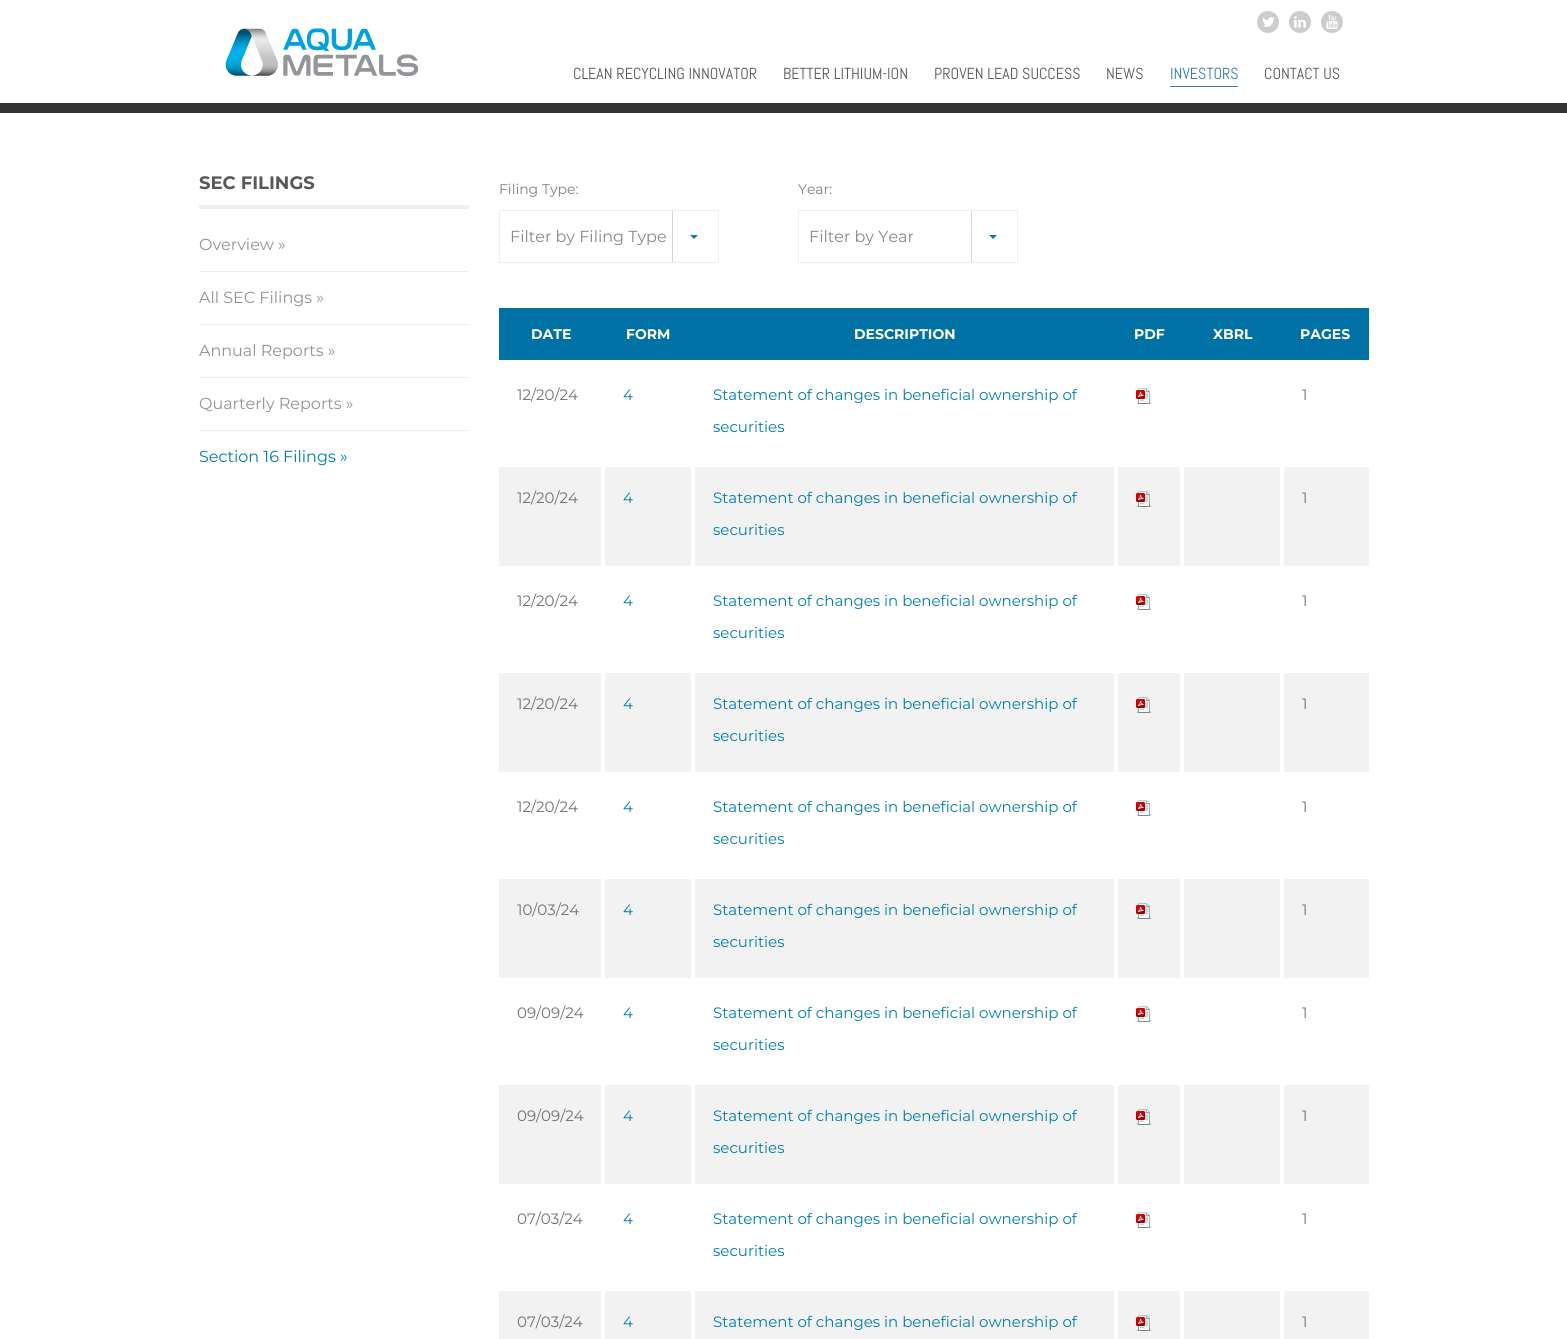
#include <cairo.h>
#include <math.h>
#include <stddef.h>


static void picture(cairo_t *cr, const char *path, double x, double y, double w, double h) {
    cairo_surface_t *image = cairo_image_surface_create_from_png(path);
    cairo_save(cr);
    cairo_set_source_surface(cr, image, x, y);
    cairo_rectangle(cr, x, y, w, h);
    cairo_fill(cr);
    cairo_restore(cr);
    cairo_surface_destroy(image);
}

int main(void) {
    cairo_surface_t *surface = cairo_image_surface_create(CAIRO_FORMAT_RGB24, 1567, 1339);
    cairo_t *cr = cairo_create(surface);
    cairo_font_options_t *options = cairo_font_options_create();
    cairo_font_options_set_hint_metrics(options, CAIRO_HINT_METRICS_OFF);
    cairo_font_options_set_hint_style(options, CAIRO_HINT_STYLE_NONE);
    cairo_set_font_options(cr, options);
    cairo_set_miter_limit(cr, 4);
    cairo_set_source_rgb(cr, 1, 1, 1);
    cairo_paint(cr);
    picture(cr, "img1.png", 225, 28, 193, 49);
    cairo_set_source_rgb(cr, 0.8, 0.8, 0.8);
    cairo_arc(cr, 1268, 22, 11, 0, 2 * M_PI);
    cairo_fill(cr);
    picture(cr, "img2.png", 1262, 17, 13, 10);
    cairo_arc(cr, 1300, 22, 11, 0, 2 * M_PI);
    cairo_fill(cr);
    picture(cr, "img3.png", 1294, 16, 12, 12);
    cairo_arc(cr, 1332, 22, 11, 0, 2 * M_PI);
    cairo_fill(cr);
    picture(cr, "img4.png", 1326, 15, 12, 14);
    cairo_select_font_face(cr, "Abel", CAIRO_FONT_SLANT_NORMAL, CAIRO_FONT_WEIGHT_NORMAL);
    cairo_set_font_size(cr, 16);
    cairo_set_source_rgb(cr, 0.345, 0.345, 0.357);
    cairo_move_to(cr, 573, 79);
    cairo_show_text(cr, "CLEAN RECYCLING INNOVATOR");
    cairo_move_to(cr, 783, 79);
    cairo_show_text(cr, "BETTER LITHIUM-ION");
    cairo_move_to(cr, 934, 79);
    cairo_show_text(cr, "PROVEN LEAD SUCCESS");
    cairo_move_to(cr, 1106, 79);
    cairo_show_text(cr, "NEWS");
    cairo_set_source_rgb(cr, 0.204, 0.471, 0.69);
    cairo_move_to(cr, 1170, 79);
    cairo_show_text(cr, "INVESTORS");
    cairo_rectangle(cr, 1170, 86, 68, 1);
    cairo_fill(cr);
    cairo_set_source_rgb(cr, 0.345, 0.345, 0.357);
    cairo_move_to(cr, 1264, 79);
    cairo_show_text(cr, "CONTACT US");
    cairo_set_source_rgb(cr, 0.2, 0.2, 0.2);
    cairo_rectangle(cr, 0, 103, 1567, 10);
    cairo_fill(cr);
    cairo_set_source_rgb(cr, 0.937, 0.937, 0.937);
    cairo_rectangle(cr, 199, 205, 270, 4);
    cairo_fill(cr);
    cairo_select_font_face(cr, "Montserrat", CAIRO_FONT_SLANT_NORMAL, CAIRO_FONT_WEIGHT_BOLD);
    cairo_set_font_size(cr, 18);
    cairo_set_source_rgb(cr, 0.345, 0.345, 0.357);
    cairo_move_to(cr, 199, 189);
    cairo_show_text(cr, "SEC FILINGS");
    cairo_set_source_rgb(cr, 0.937, 0.937, 0.937);
    cairo_rectangle(cr, 199, 271, 270, 1);
    cairo_fill(cr);
    cairo_select_font_face(cr, "Montserrat", CAIRO_FONT_SLANT_NORMAL, CAIRO_FONT_WEIGHT_NORMAL);
    cairo_set_font_size(cr, 16);
    cairo_set_source_rgb(cr, 0.576, 0.576, 0.576);
    cairo_move_to(cr, 199, 250);
    cairo_show_text(cr, "Overview »");
    cairo_set_source_rgb(cr, 0.937, 0.937, 0.937);
    cairo_rectangle(cr, 199, 324, 270, 1);
    cairo_fill(cr);
    cairo_set_source_rgb(cr, 0.576, 0.576, 0.576);
    cairo_move_to(cr, 199, 303);
    cairo_show_text(cr, "All SEC Filings »");
    cairo_set_source_rgb(cr, 0.937, 0.937, 0.937);
    cairo_rectangle(cr, 199, 377, 270, 1);
    cairo_fill(cr);
    cairo_set_source_rgb(cr, 0.576, 0.576, 0.576);
    cairo_move_to(cr, 199, 356);
    cairo_show_text(cr, "Annual Reports »");
    cairo_set_source_rgb(cr, 0.937, 0.937, 0.937);
    cairo_rectangle(cr, 199, 430, 270, 1);
    cairo_fill(cr);
    cairo_set_source_rgb(cr, 0.576, 0.576, 0.576);
    cairo_move_to(cr, 199, 409);
    cairo_show_text(cr, "Quarterly Reports »");
    cairo_set_source_rgb(cr, 0, 0.49, 0.694);
    cairo_move_to(cr, 199, 462);
    cairo_show_text(cr, "Section 16 Filings »");
    cairo_set_font_size(cr, 14);
    cairo_set_source_rgb(cr, 0.498, 0.498, 0.498);
    cairo_move_to(cr, 499, 194);
    cairo_show_text(cr, "Filing Type:");
    cairo_rectangle(cr, 499.5, 210.5, 219, 52);
    cairo_set_source_rgb(cr, 0.937, 0.937, 0.937);
    cairo_set_line_width(cr, 1);
    cairo_stroke(cr);
    cairo_set_font_size(cr, 16);
    cairo_set_source_rgb(cr, 0.533, 0.533, 0.533);
    cairo_move_to(cr, 510, 242);
    cairo_show_text(cr, "Filter by Filing Type");
    cairo_set_source_rgb(cr, 0.843, 0.843, 0.843);
    cairo_rectangle(cr, 672, 211, 1, 51);
    cairo_fill(cr);
    cairo_set_source_rgb(cr, 0, 0.49, 0.694);
    cairo_new_path(cr);
    cairo_move_to(cr, 690, 235);
    cairo_line_to(cr, 698, 235);
    cairo_line_to(cr, 694, 239);
    cairo_close_path(cr);
    cairo_fill(cr);
    cairo_set_font_size(cr, 14);
    cairo_set_source_rgb(cr, 0.498, 0.498, 0.498);
    cairo_move_to(cr, 798, 194);
    cairo_show_text(cr, "Year:");
    cairo_rectangle(cr, 798.5, 210.5, 219, 52);
    cairo_set_source_rgb(cr, 0.937, 0.937, 0.937);
    cairo_stroke(cr);
    cairo_set_font_size(cr, 16);
    cairo_set_source_rgb(cr, 0.533, 0.533, 0.533);
    cairo_move_to(cr, 809, 242);
    cairo_show_text(cr, "Filter by Year");
    cairo_set_source_rgb(cr, 0.843, 0.843, 0.843);
    cairo_rectangle(cr, 971, 211, 1, 51);
    cairo_fill(cr);
    cairo_set_source_rgb(cr, 0, 0.49, 0.694);
    cairo_new_path(cr);
    cairo_move_to(cr, 989, 235);
    cairo_line_to(cr, 997, 235);
    cairo_line_to(cr, 993, 239);
    cairo_close_path(cr);
    cairo_fill(cr);
    cairo_set_source_rgb(cr, 0, 0.443, 0.647);
    cairo_rectangle(cr, 499, 308, 870, 52);
    cairo_fill(cr);
    cairo_select_font_face(cr, "Montserrat", CAIRO_FONT_SLANT_NORMAL, CAIRO_FONT_WEIGHT_BOLD);
    cairo_set_font_size(cr, 14);
    cairo_set_source_rgb(cr, 1, 1, 1);
    cairo_move_to(cr, 531, 339);
    cairo_show_text(cr, "DATE");
    cairo_move_to(cr, 626, 339);
    cairo_show_text(cr, "FORM");
    cairo_move_to(cr, 854, 339);
    cairo_show_text(cr, "DESCRIPTION");
    cairo_move_to(cr, 1134, 339);
    cairo_show_text(cr, "PDF");
    cairo_move_to(cr, 1213, 339);
    cairo_show_text(cr, "XBRL");
    cairo_move_to(cr, 1300, 339);
    cairo_show_text(cr, "PAGES");
    cairo_select_font_face(cr, "Montserrat", CAIRO_FONT_SLANT_NORMAL, CAIRO_FONT_WEIGHT_NORMAL);
    cairo_set_font_size(cr, 15);
    cairo_set_source_rgb(cr, 0.443, 0.443, 0.443);
    cairo_move_to(cr, 517, 400);
    cairo_show_text(cr, "12/20/24");
    cairo_set_source_rgb(cr, 0, 0.49, 0.694);
    cairo_move_to(cr, 623, 400);
    cairo_show_text(cr, "4");
    cairo_move_to(cr, 713, 400);
    cairo_show_text(cr, "Statement of changes in beneficial ownership of");
    cairo_move_to(cr, 713, 432);
    cairo_show_text(cr, "securities");
    picture(cr, "img5.png", 1136, 388, 16, 16);
    cairo_set_source_rgb(cr, 0.443, 0.443, 0.443);
    cairo_move_to(cr, 1302, 400);
    cairo_show_text(cr, "1");
    cairo_set_source_rgb(cr, 0.949, 0.949, 0.949);
    cairo_rectangle(cr, 499, 467, 102, 99);
    cairo_fill(cr);
    cairo_set_source_rgb(cr, 0.443, 0.443, 0.443);
    cairo_move_to(cr, 517, 503);
    cairo_show_text(cr, "12/20/24");
    cairo_set_source_rgb(cr, 0.949, 0.949, 0.949);
    cairo_rectangle(cr, 605, 467, 86, 99);
    cairo_fill(cr);
    cairo_set_source_rgb(cr, 0, 0.49, 0.694);
    cairo_move_to(cr, 623, 503);
    cairo_show_text(cr, "4");
    cairo_set_source_rgb(cr, 0.949, 0.949, 0.949);
    cairo_rectangle(cr, 695, 467, 419, 99);
    cairo_fill(cr);
    cairo_set_source_rgb(cr, 0, 0.49, 0.694);
    cairo_move_to(cr, 713, 503);
    cairo_show_text(cr, "Statement of changes in beneficial ownership of");
    cairo_move_to(cr, 713, 535);
    cairo_show_text(cr, "securities");
    cairo_set_source_rgb(cr, 0.949, 0.949, 0.949);
    cairo_rectangle(cr, 1118, 467, 62, 99);
    cairo_fill(cr);
    picture(cr, "img6.png", 1136, 491, 16, 16);
    cairo_rectangle(cr, 1184, 467, 96, 99);
    cairo_fill(cr);
    cairo_rectangle(cr, 1284, 467, 85, 99);
    cairo_fill(cr);
    cairo_set_source_rgb(cr, 0.443, 0.443, 0.443);
    cairo_move_to(cr, 1302, 503);
    cairo_show_text(cr, "1");
    cairo_move_to(cr, 517, 606);
    cairo_show_text(cr, "12/20/24");
    cairo_set_source_rgb(cr, 0, 0.49, 0.694);
    cairo_move_to(cr, 623, 606);
    cairo_show_text(cr, "4");
    cairo_move_to(cr, 713, 606);
    cairo_show_text(cr, "Statement of changes in beneficial ownership of");
    cairo_move_to(cr, 713, 638);
    cairo_show_text(cr, "securities");
    picture(cr, "img5.png", 1136, 594, 16, 16);
    cairo_set_source_rgb(cr, 0.443, 0.443, 0.443);
    cairo_move_to(cr, 1302, 606);
    cairo_show_text(cr, "1");
    cairo_set_source_rgb(cr, 0.949, 0.949, 0.949);
    cairo_rectangle(cr, 499, 673, 102, 99);
    cairo_fill(cr);
    cairo_set_source_rgb(cr, 0.443, 0.443, 0.443);
    cairo_move_to(cr, 517, 709);
    cairo_show_text(cr, "12/20/24");
    cairo_set_source_rgb(cr, 0.949, 0.949, 0.949);
    cairo_rectangle(cr, 605, 673, 86, 99);
    cairo_fill(cr);
    cairo_set_source_rgb(cr, 0, 0.49, 0.694);
    cairo_move_to(cr, 623, 709);
    cairo_show_text(cr, "4");
    cairo_set_source_rgb(cr, 0.949, 0.949, 0.949);
    cairo_rectangle(cr, 695, 673, 419, 99);
    cairo_fill(cr);
    cairo_set_source_rgb(cr, 0, 0.49, 0.694);
    cairo_move_to(cr, 713, 709);
    cairo_show_text(cr, "Statement of changes in beneficial ownership of");
    cairo_move_to(cr, 713, 741);
    cairo_show_text(cr, "securities");
    cairo_set_source_rgb(cr, 0.949, 0.949, 0.949);
    cairo_rectangle(cr, 1118, 673, 62, 99);
    cairo_fill(cr);
    picture(cr, "img6.png", 1136, 697, 16, 16);
    cairo_rectangle(cr, 1184, 673, 96, 99);
    cairo_fill(cr);
    cairo_rectangle(cr, 1284, 673, 85, 99);
    cairo_fill(cr);
    cairo_set_source_rgb(cr, 0.443, 0.443, 0.443);
    cairo_move_to(cr, 1302, 709);
    cairo_show_text(cr, "1");
    cairo_move_to(cr, 517, 812);
    cairo_show_text(cr, "12/20/24");
    cairo_set_source_rgb(cr, 0, 0.49, 0.694);
    cairo_move_to(cr, 623, 812);
    cairo_show_text(cr, "4");
    cairo_move_to(cr, 713, 812);
    cairo_show_text(cr, "Statement of changes in beneficial ownership of");
    cairo_move_to(cr, 713, 844);
    cairo_show_text(cr, "securities");
    picture(cr, "img5.png", 1136, 800, 16, 16);
    cairo_set_source_rgb(cr, 0.443, 0.443, 0.443);
    cairo_move_to(cr, 1302, 812);
    cairo_show_text(cr, "1");
    cairo_set_source_rgb(cr, 0.949, 0.949, 0.949);
    cairo_rectangle(cr, 499, 879, 102, 99);
    cairo_fill(cr);
    cairo_set_source_rgb(cr, 0.443, 0.443, 0.443);
    cairo_move_to(cr, 517, 915);
    cairo_show_text(cr, "10/03/24");
    cairo_set_source_rgb(cr, 0.949, 0.949, 0.949);
    cairo_rectangle(cr, 605, 879, 86, 99);
    cairo_fill(cr);
    cairo_set_source_rgb(cr, 0, 0.49, 0.694);
    cairo_move_to(cr, 623, 915);
    cairo_show_text(cr, "4");
    cairo_set_source_rgb(cr, 0.949, 0.949, 0.949);
    cairo_rectangle(cr, 695, 879, 419, 99);
    cairo_fill(cr);
    cairo_set_source_rgb(cr, 0, 0.49, 0.694);
    cairo_move_to(cr, 713, 915);
    cairo_show_text(cr, "Statement of changes in beneficial ownership of");
    cairo_move_to(cr, 713, 947);
    cairo_show_text(cr, "securities");
    cairo_set_source_rgb(cr, 0.949, 0.949, 0.949);
    cairo_rectangle(cr, 1118, 879, 62, 99);
    cairo_fill(cr);
    picture(cr, "img6.png", 1136, 903, 16, 16);
    cairo_rectangle(cr, 1184, 879, 96, 99);
    cairo_fill(cr);
    cairo_rectangle(cr, 1284, 879, 85, 99);
    cairo_fill(cr);
    cairo_set_source_rgb(cr, 0.443, 0.443, 0.443);
    cairo_move_to(cr, 1302, 915);
    cairo_show_text(cr, "1");
    cairo_move_to(cr, 517, 1018);
    cairo_show_text(cr, "09/09/24");
    cairo_set_source_rgb(cr, 0, 0.49, 0.694);
    cairo_move_to(cr, 623, 1018);
    cairo_show_text(cr, "4");
    cairo_move_to(cr, 713, 1018);
    cairo_show_text(cr, "Statement of changes in beneficial ownership of");
    cairo_move_to(cr, 713, 1050);
    cairo_show_text(cr, "securities");
    picture(cr, "img5.png", 1136, 1006, 16, 16);
    cairo_set_source_rgb(cr, 0.443, 0.443, 0.443);
    cairo_move_to(cr, 1302, 1018);
    cairo_show_text(cr, "1");
    cairo_set_source_rgb(cr, 0.949, 0.949, 0.949);
    cairo_rectangle(cr, 499, 1085, 102, 99);
    cairo_fill(cr);
    cairo_set_source_rgb(cr, 0.443, 0.443, 0.443);
    cairo_move_to(cr, 517, 1121);
    cairo_show_text(cr, "09/09/24");
    cairo_set_source_rgb(cr, 0.949, 0.949, 0.949);
    cairo_rectangle(cr, 605, 1085, 86, 99);
    cairo_fill(cr);
    cairo_set_source_rgb(cr, 0, 0.49, 0.694);
    cairo_move_to(cr, 623, 1121);
    cairo_show_text(cr, "4");
    cairo_set_source_rgb(cr, 0.949, 0.949, 0.949);
    cairo_rectangle(cr, 695, 1085, 419, 99);
    cairo_fill(cr);
    cairo_set_source_rgb(cr, 0, 0.49, 0.694);
    cairo_move_to(cr, 713, 1121);
    cairo_show_text(cr, "Statement of changes in beneficial ownership of");
    cairo_move_to(cr, 713, 1153);
    cairo_show_text(cr, "securities");
    cairo_set_source_rgb(cr, 0.949, 0.949, 0.949);
    cairo_rectangle(cr, 1118, 1085, 62, 99);
    cairo_fill(cr);
    picture(cr, "img6.png", 1136, 1109, 16, 16);
    cairo_rectangle(cr, 1184, 1085, 96, 99);
    cairo_fill(cr);
    cairo_rectangle(cr, 1284, 1085, 85, 99);
    cairo_fill(cr);
    cairo_set_source_rgb(cr, 0.443, 0.443, 0.443);
    cairo_move_to(cr, 1302, 1121);
    cairo_show_text(cr, "1");
    cairo_move_to(cr, 517, 1224);
    cairo_show_text(cr, "07/03/24");
    cairo_set_source_rgb(cr, 0, 0.49, 0.694);
    cairo_move_to(cr, 623, 1224);
    cairo_show_text(cr, "4");
    cairo_move_to(cr, 713, 1224);
    cairo_show_text(cr, "Statement of changes in beneficial ownership of");
    cairo_move_to(cr, 713, 1256);
    cairo_show_text(cr, "securities");
    picture(cr, "img5.png", 1136, 1212, 16, 16);
    cairo_set_source_rgb(cr, 0.443, 0.443, 0.443);
    cairo_move_to(cr, 1302, 1224);
    cairo_show_text(cr, "1");
    cairo_set_source_rgb(cr, 0.949, 0.949, 0.949);
    cairo_rectangle(cr, 499, 1291, 102, 48);
    cairo_fill(cr);
    cairo_set_source_rgb(cr, 0.443, 0.443, 0.443);
    cairo_move_to(cr, 517, 1327);
    cairo_show_text(cr, "07/03/24");
    cairo_set_source_rgb(cr, 0.949, 0.949, 0.949);
    cairo_rectangle(cr, 605, 1291, 86, 48);
    cairo_fill(cr);
    cairo_set_source_rgb(cr, 0, 0.49, 0.694);
    cairo_move_to(cr, 623, 1327);
    cairo_show_text(cr, "4");
    cairo_set_source_rgb(cr, 0.949, 0.949, 0.949);
    cairo_rectangle(cr, 695, 1291, 419, 48);
    cairo_fill(cr);
    cairo_set_source_rgb(cr, 0, 0.49, 0.694);
    cairo_move_to(cr, 713, 1327);
    cairo_show_text(cr, "Statement of changes in beneficial ownership of");
    cairo_set_source_rgb(cr, 0.949, 0.949, 0.949);
    cairo_rectangle(cr, 1118, 1291, 62, 48);
    cairo_fill(cr);
    picture(cr, "img6.png", 1136, 1315, 16, 16);
    cairo_rectangle(cr, 1184, 1291, 96, 48);
    cairo_fill(cr);
    cairo_rectangle(cr, 1284, 1291, 85, 48);
    cairo_fill(cr);
    cairo_set_source_rgb(cr, 0.443, 0.443, 0.443);
    cairo_move_to(cr, 1302, 1327);
    cairo_show_text(cr, "1");
    cairo_surface_write_to_png(surface, "page.png");
    cairo_font_options_destroy(options);
    cairo_destroy(cr);
    cairo_surface_destroy(surface);
    return 0;
}
